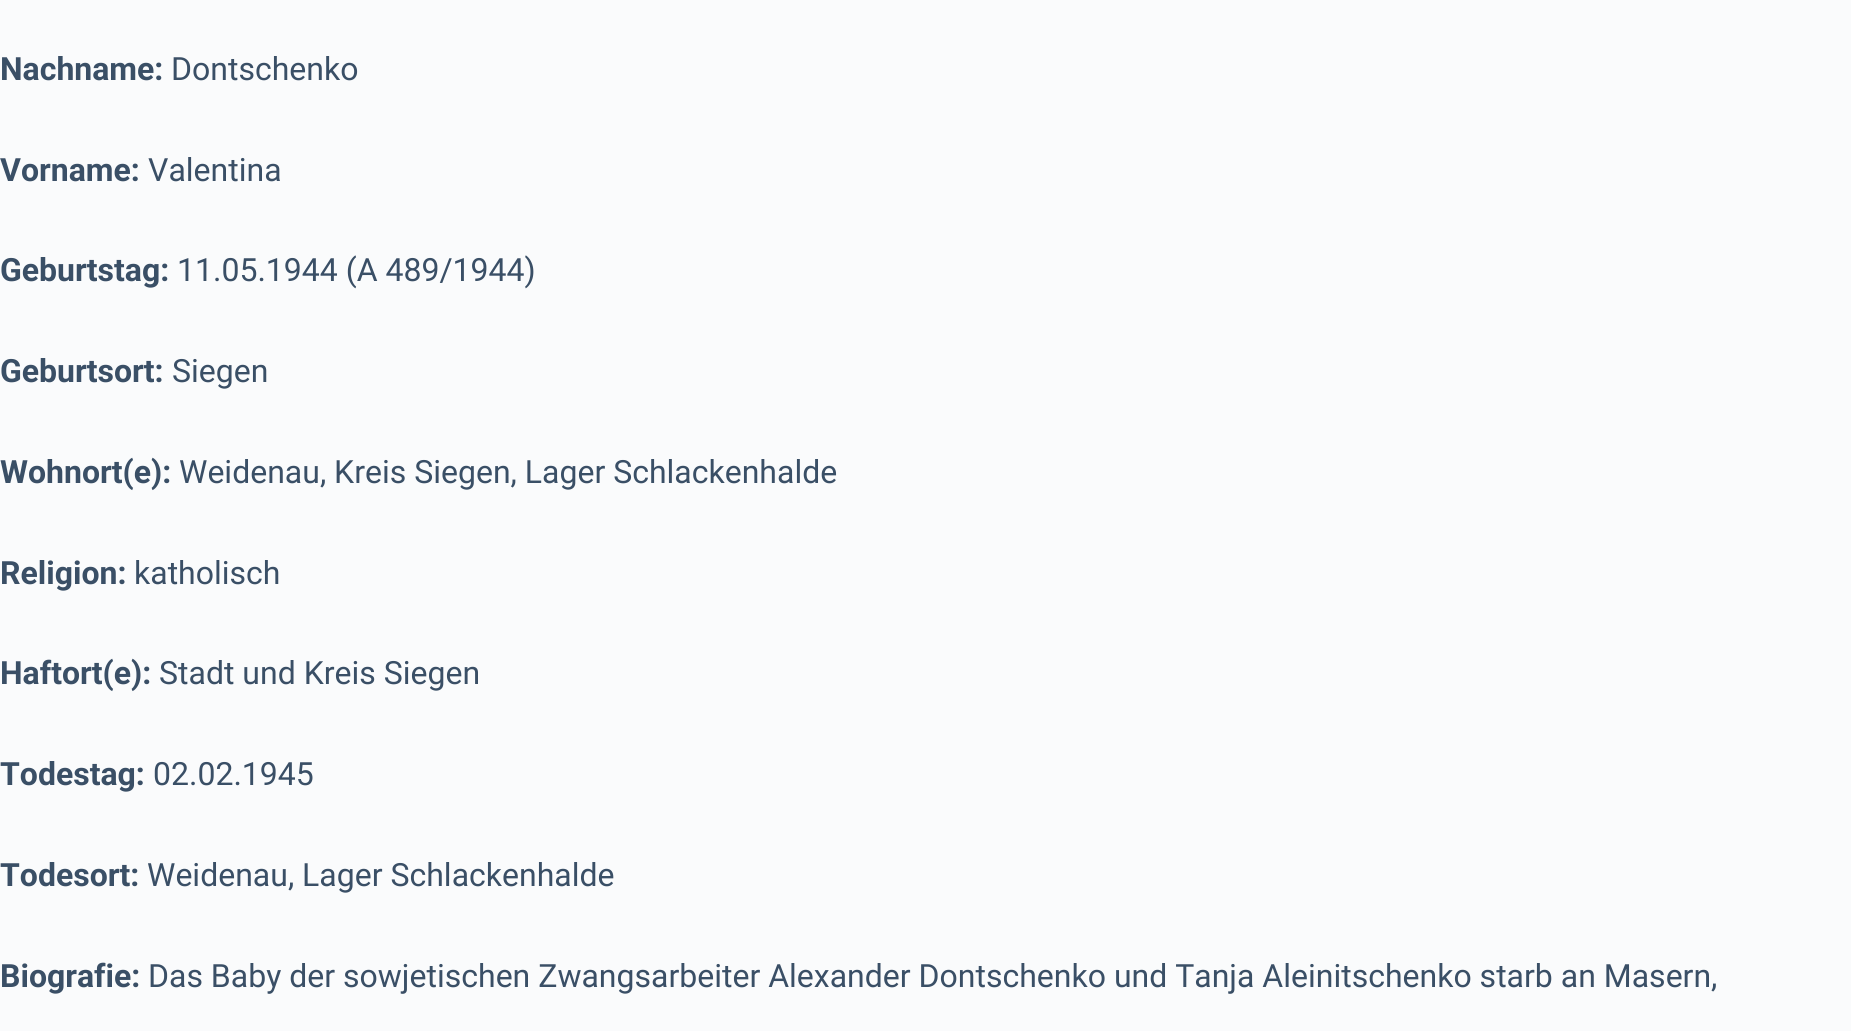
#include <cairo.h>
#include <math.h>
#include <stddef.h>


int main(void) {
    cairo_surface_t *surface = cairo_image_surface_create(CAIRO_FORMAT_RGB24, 1851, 1031);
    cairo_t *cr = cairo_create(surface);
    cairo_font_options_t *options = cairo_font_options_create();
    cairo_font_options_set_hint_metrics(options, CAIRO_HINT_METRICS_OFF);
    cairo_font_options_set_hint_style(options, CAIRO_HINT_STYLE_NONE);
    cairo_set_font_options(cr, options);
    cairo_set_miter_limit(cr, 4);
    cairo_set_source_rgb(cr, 0.98, 0.984, 0.988);
    cairo_paint(cr);
    cairo_select_font_face(cr, "Roboto", CAIRO_FONT_SLANT_NORMAL, CAIRO_FONT_WEIGHT_BOLD);
    cairo_set_font_size(cr, 32);
    cairo_set_source_rgb(cr, 0.227, 0.31, 0.4);
    cairo_move_to(cr, 0, 80);
    cairo_show_text(cr, "Nachname:");
    cairo_select_font_face(cr, "Roboto", CAIRO_FONT_SLANT_NORMAL, CAIRO_FONT_WEIGHT_NORMAL);
    cairo_move_to(cr, 171, 80);
    cairo_show_text(cr, "Dontschenko");
    cairo_select_font_face(cr, "Roboto", CAIRO_FONT_SLANT_NORMAL, CAIRO_FONT_WEIGHT_BOLD);
    cairo_move_to(cr, 0, 181);
    cairo_show_text(cr, "Vorname:");
    cairo_select_font_face(cr, "Roboto", CAIRO_FONT_SLANT_NORMAL, CAIRO_FONT_WEIGHT_NORMAL);
    cairo_move_to(cr, 148, 181);
    cairo_show_text(cr, "Valentina");
    cairo_select_font_face(cr, "Roboto", CAIRO_FONT_SLANT_NORMAL, CAIRO_FONT_WEIGHT_BOLD);
    cairo_move_to(cr, 0, 281);
    cairo_show_text(cr, "Geburtstag:");
    cairo_select_font_face(cr, "Roboto", CAIRO_FONT_SLANT_NORMAL, CAIRO_FONT_WEIGHT_NORMAL);
    cairo_move_to(cr, 177, 281);
    cairo_show_text(cr, "11.05.1944 (A 489/1944)");
    cairo_select_font_face(cr, "Roboto", CAIRO_FONT_SLANT_NORMAL, CAIRO_FONT_WEIGHT_BOLD);
    cairo_move_to(cr, 0, 382);
    cairo_show_text(cr, "Geburtsort:");
    cairo_select_font_face(cr, "Roboto", CAIRO_FONT_SLANT_NORMAL, CAIRO_FONT_WEIGHT_NORMAL);
    cairo_move_to(cr, 172, 382);
    cairo_show_text(cr, "Siegen");
    cairo_select_font_face(cr, "Roboto", CAIRO_FONT_SLANT_NORMAL, CAIRO_FONT_WEIGHT_BOLD);
    cairo_move_to(cr, 0, 483);
    cairo_show_text(cr, "Wohnort(e):");
    cairo_select_font_face(cr, "Roboto", CAIRO_FONT_SLANT_NORMAL, CAIRO_FONT_WEIGHT_NORMAL);
    cairo_move_to(cr, 179, 483);
    cairo_show_text(cr, "Weidenau, Kreis Siegen, Lager Schlackenhalde");
    cairo_select_font_face(cr, "Roboto", CAIRO_FONT_SLANT_NORMAL, CAIRO_FONT_WEIGHT_BOLD);
    cairo_move_to(cr, 0, 584);
    cairo_show_text(cr, "Religion:");
    cairo_select_font_face(cr, "Roboto", CAIRO_FONT_SLANT_NORMAL, CAIRO_FONT_WEIGHT_NORMAL);
    cairo_move_to(cr, 134, 584);
    cairo_show_text(cr, "katholisch");
    cairo_select_font_face(cr, "Roboto", CAIRO_FONT_SLANT_NORMAL, CAIRO_FONT_WEIGHT_BOLD);
    cairo_move_to(cr, 0, 684);
    cairo_show_text(cr, "Haftort(e):");
    cairo_select_font_face(cr, "Roboto", CAIRO_FONT_SLANT_NORMAL, CAIRO_FONT_WEIGHT_NORMAL);
    cairo_move_to(cr, 159, 684);
    cairo_show_text(cr, "Stadt und Kreis Siegen");
    cairo_select_font_face(cr, "Roboto", CAIRO_FONT_SLANT_NORMAL, CAIRO_FONT_WEIGHT_BOLD);
    cairo_move_to(cr, 0, 785);
    cairo_show_text(cr, "Todestag:");
    cairo_select_font_face(cr, "Roboto", CAIRO_FONT_SLANT_NORMAL, CAIRO_FONT_WEIGHT_NORMAL);
    cairo_move_to(cr, 153, 785);
    cairo_show_text(cr, "02.02.1945");
    cairo_select_font_face(cr, "Roboto", CAIRO_FONT_SLANT_NORMAL, CAIRO_FONT_WEIGHT_BOLD);
    cairo_move_to(cr, 0, 886);
    cairo_show_text(cr, "Todesort:");
    cairo_select_font_face(cr, "Roboto", CAIRO_FONT_SLANT_NORMAL, CAIRO_FONT_WEIGHT_NORMAL);
    cairo_move_to(cr, 147, 886);
    cairo_show_text(cr, "Weidenau, Lager Schlackenhalde");
    cairo_select_font_face(cr, "Roboto", CAIRO_FONT_SLANT_NORMAL, CAIRO_FONT_WEIGHT_BOLD);
    cairo_move_to(cr, 0, 987);
    cairo_show_text(cr, "Biografie:");
    cairo_select_font_face(cr, "Roboto", CAIRO_FONT_SLANT_NORMAL, CAIRO_FONT_WEIGHT_NORMAL);
    cairo_move_to(cr, 148, 987);
    cairo_show_text(cr, "Das Baby der sowjetischen Zwangsarbeiter Alexander Dontschenko und Tanja Aleinitschenko starb an Masern,");
    cairo_surface_write_to_png(surface, "page.png");
    cairo_font_options_destroy(options);
    cairo_destroy(cr);
    cairo_surface_destroy(surface);
    return 0;
}
